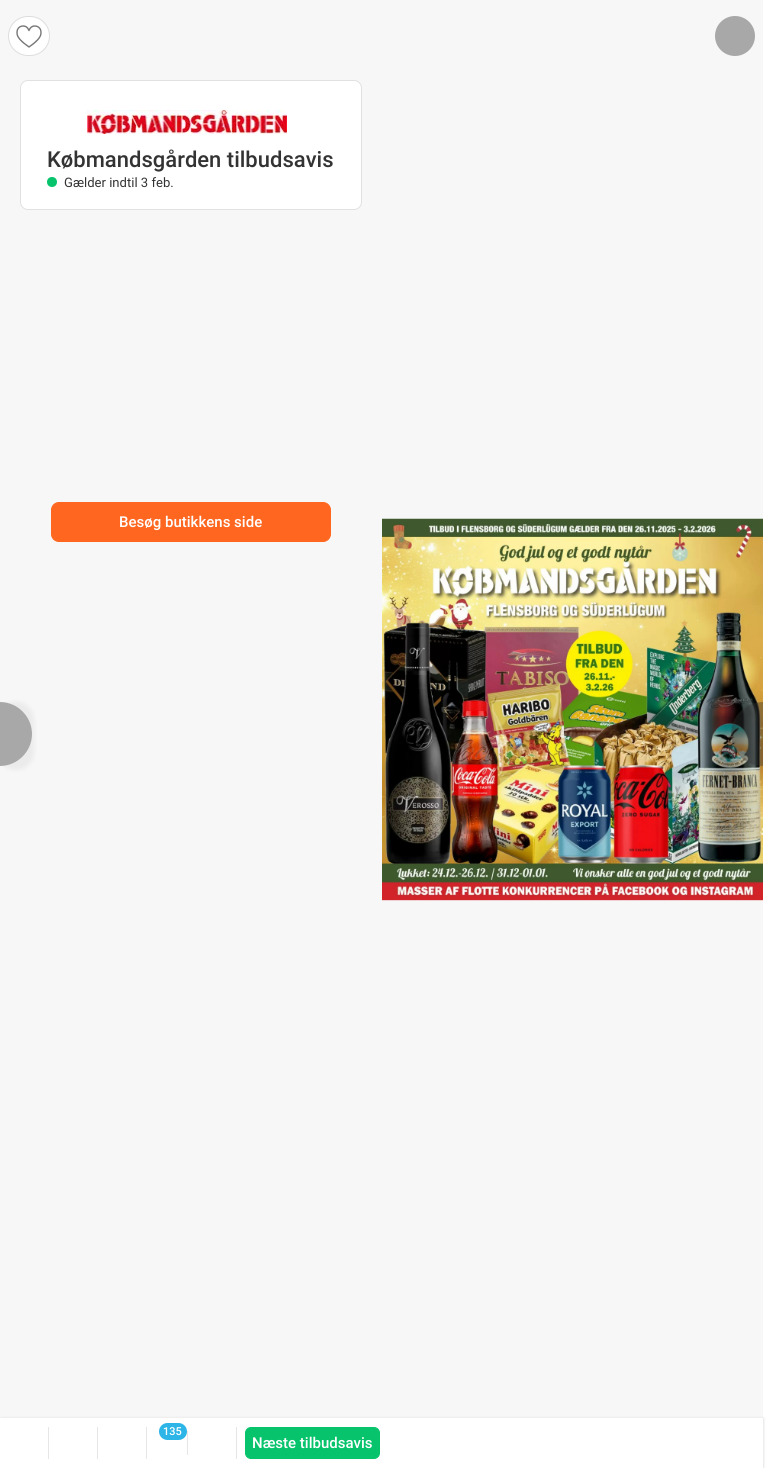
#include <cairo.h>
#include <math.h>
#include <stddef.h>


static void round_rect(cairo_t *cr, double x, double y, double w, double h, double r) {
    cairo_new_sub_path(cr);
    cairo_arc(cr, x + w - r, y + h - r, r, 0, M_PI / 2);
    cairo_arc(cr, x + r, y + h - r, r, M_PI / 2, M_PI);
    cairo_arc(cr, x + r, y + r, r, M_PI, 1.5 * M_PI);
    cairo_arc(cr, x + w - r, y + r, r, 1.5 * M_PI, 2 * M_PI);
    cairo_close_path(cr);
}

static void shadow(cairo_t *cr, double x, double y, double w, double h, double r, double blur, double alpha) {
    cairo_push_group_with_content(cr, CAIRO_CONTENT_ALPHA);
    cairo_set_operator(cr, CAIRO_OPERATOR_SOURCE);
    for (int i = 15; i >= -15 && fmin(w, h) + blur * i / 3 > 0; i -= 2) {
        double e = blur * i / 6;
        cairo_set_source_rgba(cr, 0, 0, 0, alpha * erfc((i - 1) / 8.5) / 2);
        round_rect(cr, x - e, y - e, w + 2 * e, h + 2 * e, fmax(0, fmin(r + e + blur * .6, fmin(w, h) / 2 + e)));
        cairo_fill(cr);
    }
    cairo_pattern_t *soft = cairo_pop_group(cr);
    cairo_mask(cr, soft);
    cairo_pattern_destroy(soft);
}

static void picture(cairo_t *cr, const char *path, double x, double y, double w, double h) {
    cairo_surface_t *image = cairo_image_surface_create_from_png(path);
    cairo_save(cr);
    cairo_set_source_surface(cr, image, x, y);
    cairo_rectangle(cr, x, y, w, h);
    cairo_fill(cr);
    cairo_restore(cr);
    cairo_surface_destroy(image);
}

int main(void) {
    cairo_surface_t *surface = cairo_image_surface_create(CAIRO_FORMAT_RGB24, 778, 1468);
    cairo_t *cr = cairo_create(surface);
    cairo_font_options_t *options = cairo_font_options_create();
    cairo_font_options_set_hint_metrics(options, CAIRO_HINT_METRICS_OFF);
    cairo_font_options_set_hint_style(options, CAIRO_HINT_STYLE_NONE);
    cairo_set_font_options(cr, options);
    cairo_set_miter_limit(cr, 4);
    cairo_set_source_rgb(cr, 1, 1, 1);
    cairo_paint(cr);
    cairo_set_source_rgb(cr, 0.965, 0.965, 0.965);
    cairo_rectangle(cr, 0, 0, 763, 1418);
    cairo_fill(cr);
    cairo_set_source_rgb(cr, 1, 1, 1);
    round_rect(cr, 8.5, 16.5, 41, 39, 19.5);
    cairo_fill_preserve(cr);
    cairo_set_source_rgb(cr, 0.867, 0.867, 0.867);
    cairo_set_line_width(cr, 1);
    cairo_stroke(cr);
    picture(cr, "img1.png", 16, 25, 26, 23);
    cairo_set_source_rgb(cr, 0.659, 0.659, 0.659);
    cairo_arc(cr, 735, 36, 20, 0, 2 * M_PI);
    cairo_fill(cr);
    cairo_set_source_rgb(cr, 1, 1, 1);
    round_rect(cr, 20, 80, 342, 130, 8);
    cairo_fill(cr);
    round_rect(cr, 20.5, 80.5, 341, 129, 7.5);
    cairo_set_source_rgba(cr, 0, 0, 0, 0.12);
    cairo_stroke(cr);
    picture(cr, "img2.png", 87, 110, 200, 24);
    cairo_select_font_face(cr, "Roboto Medium", CAIRO_FONT_SLANT_NORMAL, CAIRO_FONT_WEIGHT_NORMAL);
    cairo_set_font_size(cr, 22);
    cairo_set_source_rgb(cr, 0.2, 0.2, 0.2);
    cairo_move_to(cr, 47, 167);
    cairo_show_text(cr, "Købmandsgården tilbudsavis");
    cairo_set_source_rgb(cr, 0.031, 0.765, 0.424);
    cairo_new_path(cr);
    cairo_arc(cr, 52, 182, 5, 0, 2 * M_PI);
    cairo_fill(cr);
    cairo_select_font_face(cr, "Roboto", CAIRO_FONT_SLANT_NORMAL, CAIRO_FONT_WEIGHT_NORMAL);
    cairo_set_font_size(cr, 13.1);
    cairo_set_source_rgb(cr, 0.2, 0.2, 0.2);
    cairo_move_to(cr, 64, 187);
    cairo_show_text(cr, "Gælder indtil 3 feb.");
    cairo_set_source_rgb(cr, 1, 0.4, 0.122);
    round_rect(cr, 51.5, 502.5, 279, 39, 7.5);
    cairo_fill_preserve(cr);
    cairo_stroke(cr);
    cairo_select_font_face(cr, "Roboto Medium", CAIRO_FONT_SLANT_NORMAL, CAIRO_FONT_WEIGHT_NORMAL);
    cairo_set_font_size(cr, 15);
    cairo_set_source_rgb(cr, 1, 1, 1);
    cairo_move_to(cr, 119, 527);
    cairo_show_text(cr, "Besøg butikkens side");
    picture(cr, "img3.png", 382, 518, 381, 383);
    cairo_save(cr);
    cairo_set_fill_rule(cr, CAIRO_FILL_RULE_EVEN_ODD);
    cairo_new_path(cr);
    cairo_move_to(cr, 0, 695);
    cairo_line_to(cr, 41, 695);
    cairo_line_to(cr, 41, 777);
    cairo_line_to(cr, 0, 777);
    cairo_close_path(cr);
    cairo_move_to(cr, 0, 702);
    cairo_curve_to(cr, 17.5, 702, 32, 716.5, 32, 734);
    cairo_curve_to(cr, 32, 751.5, 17.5, 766, 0, 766);
    cairo_close_path(cr);
    cairo_clip(cr);
    cairo_set_source_rgb(cr, 0, 0, 0);
    shadow(cr, -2, 702, 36, 68, 34, 2, 0.05);
    cairo_restore(cr);
    cairo_set_source_rgba(cr, 0.2, 0.2, 0.2, 0.4);
    cairo_new_path(cr);
    cairo_move_to(cr, 0, 702);
    cairo_curve_to(cr, 17.5, 702, 32, 716.5, 32, 734);
    cairo_curve_to(cr, 32, 751.5, 17.5, 766, 0, 766);
    cairo_close_path(cr);
    cairo_fill(cr);
    cairo_new_path(cr);
    cairo_move_to(cr, 763, 702);
    cairo_line_to(cr, 763, 766);
    cairo_curve_to(cr, 745.5, 766, 731, 751.5, 731, 734);
    cairo_curve_to(cr, 731, 716.5, 745.5, 702, 763, 702);
    cairo_close_path(cr);
    cairo_fill(cr);
    cairo_set_source_rgb(cr, 0, 0, 0);
    shadow(cr, 1, 1418, 763, 50, 0, 1, 0.1);
    cairo_set_source_rgb(cr, 1, 1, 1);
    cairo_rectangle(cr, 0, 1418, 763, 50);
    cairo_fill(cr);
    cairo_set_source_rgb(cr, 0.902, 0.902, 0.902);
    cairo_rectangle(cr, 48, 1427, 1, 32);
    cairo_fill(cr);
    cairo_rectangle(cr, 97, 1427, 1, 32);
    cairo_fill(cr);
    cairo_rectangle(cr, 146, 1427, 1, 32);
    cairo_fill(cr);
    cairo_rectangle(cr, 187, 1431, 1, 24);
    cairo_fill(cr);
    cairo_set_source_rgb(cr, 0.173, 0.71, 0.902);
    round_rect(cr, 159, 1423, 28, 17, 8.5);
    cairo_fill(cr);
    cairo_set_font_size(cr, 11);
    cairo_set_source_rgb(cr, 1, 1, 1);
    cairo_move_to(cr, 163, 1435);
    cairo_show_text(cr, "135");
    cairo_set_source_rgb(cr, 0.902, 0.902, 0.902);
    cairo_rectangle(cr, 236, 1427, 1, 32);
    cairo_fill(cr);
    cairo_set_source_rgb(cr, 0.031, 0.765, 0.424);
    round_rect(cr, 245.5, 1427.5, 134, 31, 5.5);
    cairo_fill_preserve(cr);
    cairo_stroke(cr);
    cairo_set_font_size(cr, 15);
    cairo_set_source_rgb(cr, 1, 1, 1);
    cairo_move_to(cr, 252, 1448);
    cairo_show_text(cr, "Næste tilbudsavis");
    cairo_surface_write_to_png(surface, "page.png");
    cairo_font_options_destroy(options);
    cairo_destroy(cr);
    cairo_surface_destroy(surface);
    return 0;
}
